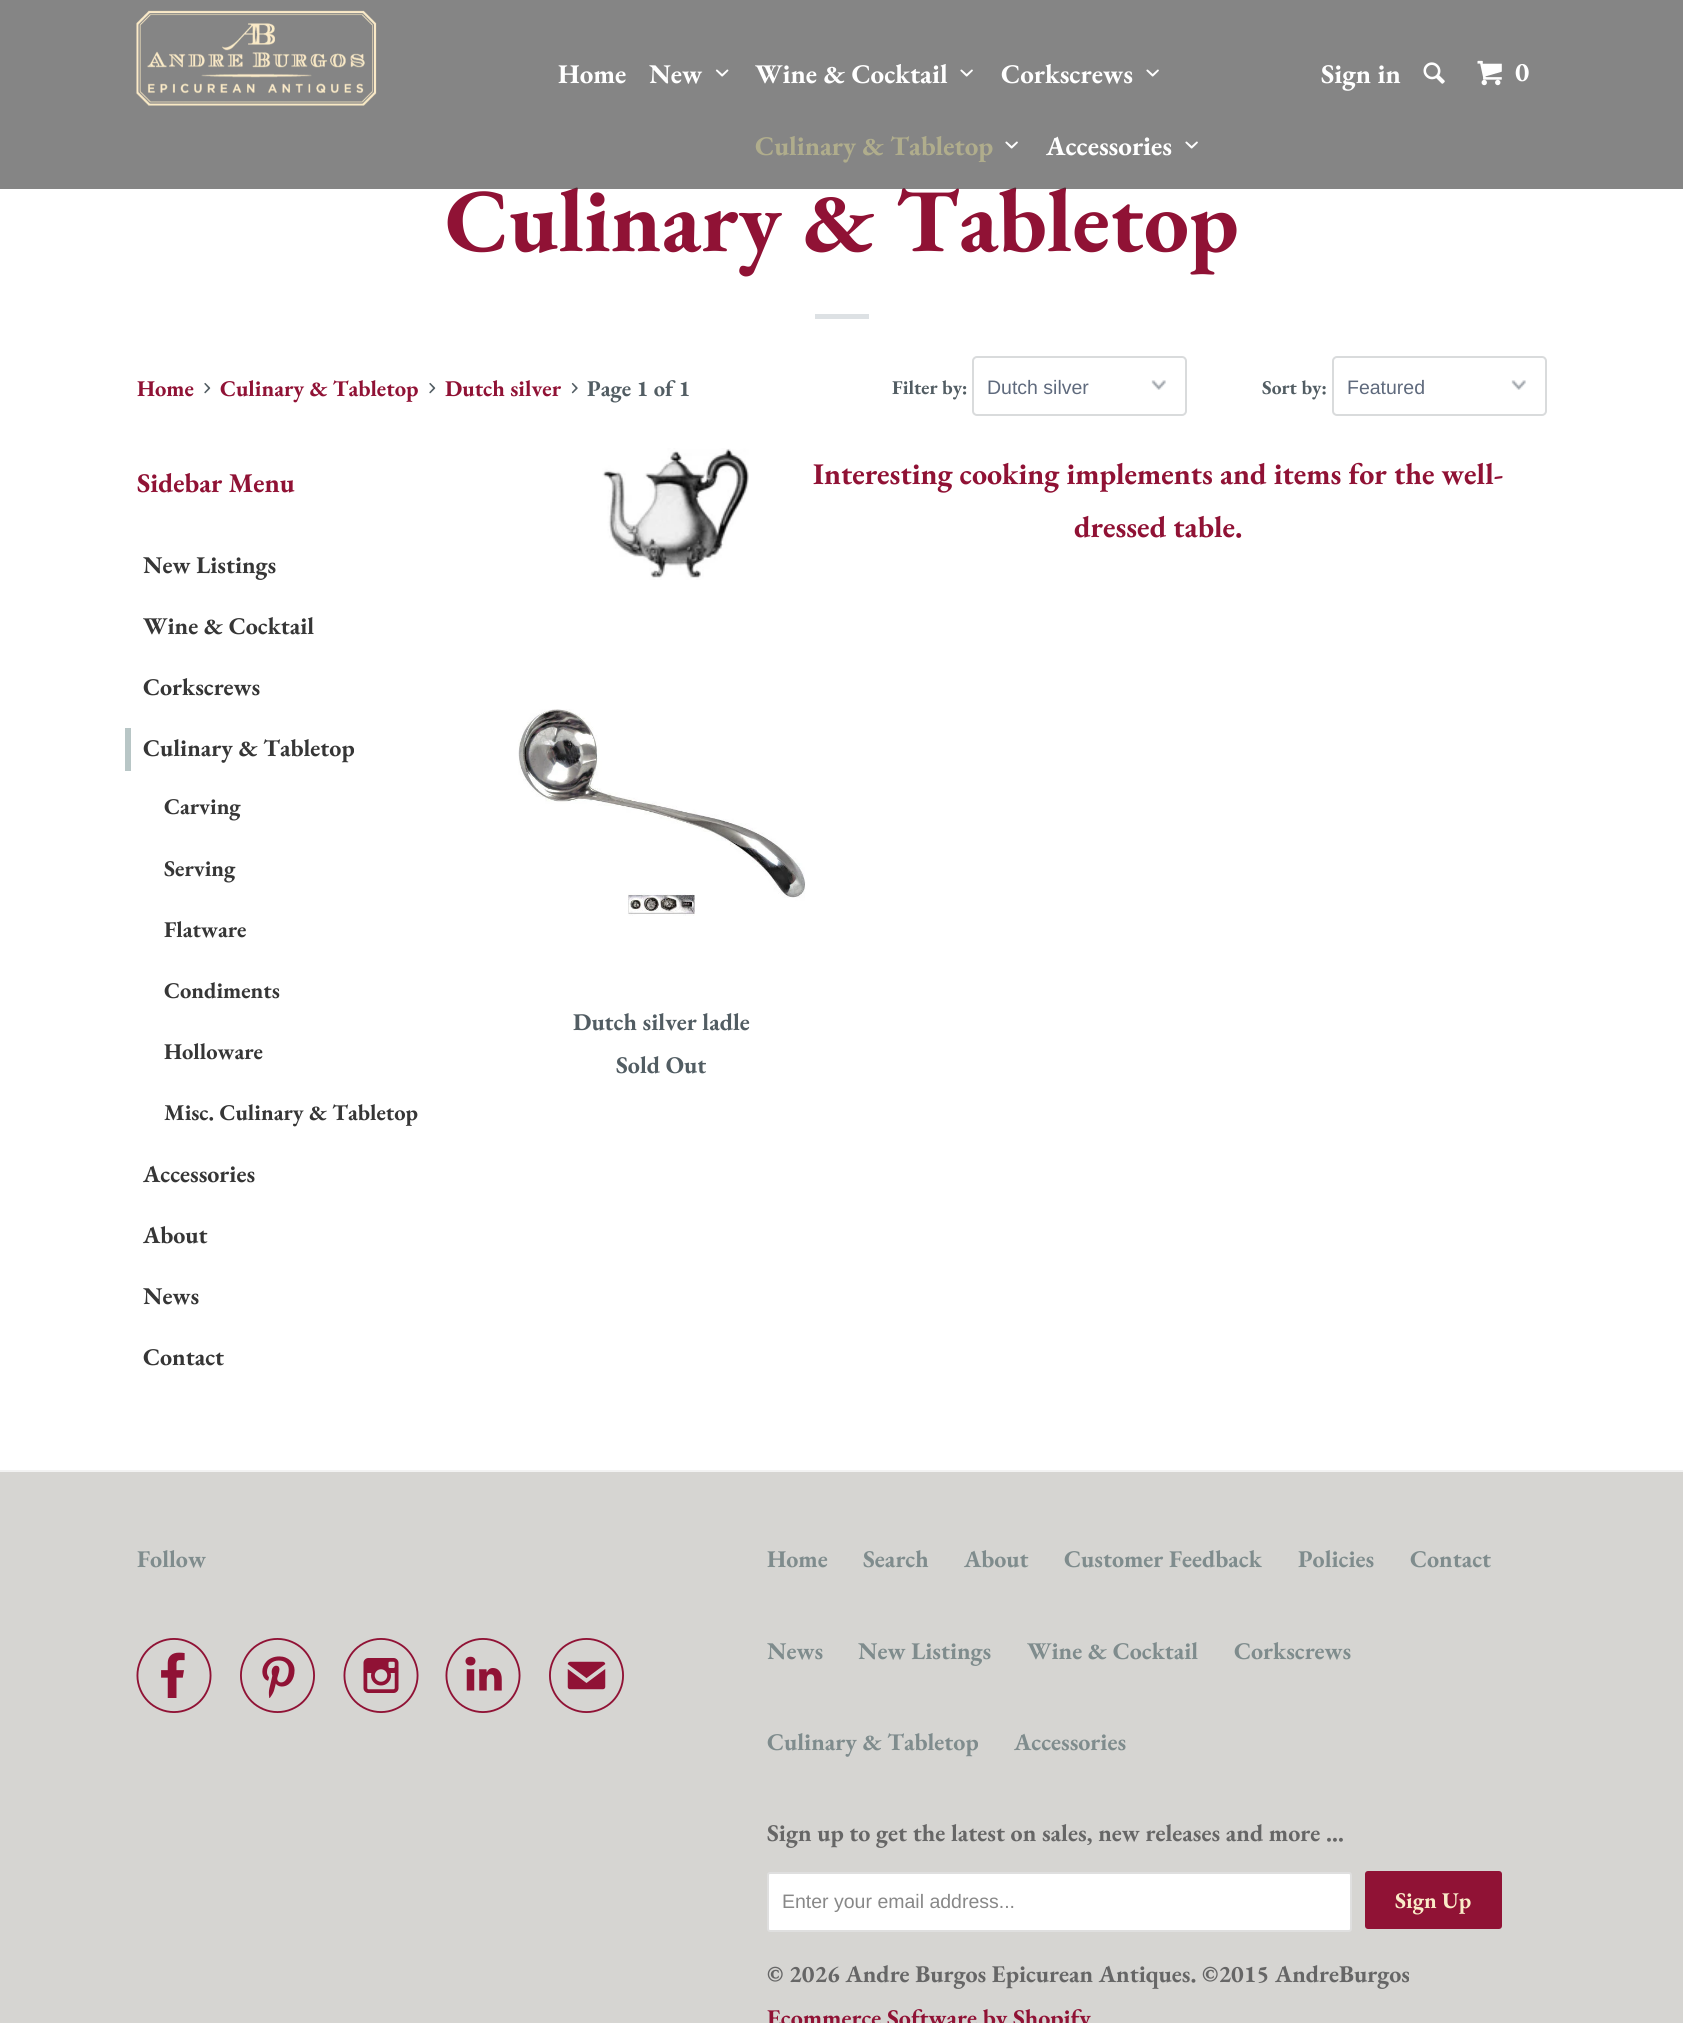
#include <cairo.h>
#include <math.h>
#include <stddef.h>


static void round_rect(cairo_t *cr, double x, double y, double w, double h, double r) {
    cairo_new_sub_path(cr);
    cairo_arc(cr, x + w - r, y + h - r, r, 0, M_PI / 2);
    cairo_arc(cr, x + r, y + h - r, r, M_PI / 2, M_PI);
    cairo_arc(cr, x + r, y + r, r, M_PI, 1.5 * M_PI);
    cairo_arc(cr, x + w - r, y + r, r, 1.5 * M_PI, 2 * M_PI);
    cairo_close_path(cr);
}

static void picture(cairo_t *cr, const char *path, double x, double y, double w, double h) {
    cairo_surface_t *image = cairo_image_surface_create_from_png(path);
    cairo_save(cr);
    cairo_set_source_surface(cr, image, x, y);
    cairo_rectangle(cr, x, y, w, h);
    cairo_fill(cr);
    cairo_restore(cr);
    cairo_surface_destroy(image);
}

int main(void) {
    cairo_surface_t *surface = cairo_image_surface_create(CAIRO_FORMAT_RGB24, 1683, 2023);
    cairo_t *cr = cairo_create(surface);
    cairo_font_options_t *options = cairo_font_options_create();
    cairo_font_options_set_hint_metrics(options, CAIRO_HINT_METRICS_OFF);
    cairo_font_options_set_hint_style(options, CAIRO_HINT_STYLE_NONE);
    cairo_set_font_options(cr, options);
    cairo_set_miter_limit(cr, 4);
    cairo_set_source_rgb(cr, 1, 1, 1);
    cairo_paint(cr);
    cairo_select_font_face(cr, "EB Garamond", CAIRO_FONT_SLANT_NORMAL, CAIRO_FONT_WEIGHT_BOLD);
    cairo_set_font_size(cr, 90);
    cairo_set_source_rgb(cr, 0.565, 0.071, 0.208);
    cairo_move_to(cr, 445, 251);
    cairo_show_text(cr, "Culinary & Tabletop");
    cairo_set_source_rgba(cr, 0.204, 0.204, 0.204, 0.6);
    cairo_rectangle(cr, 0, 0, 1683, 189);
    cairo_fill(cr);
    picture(cr, "img1.png", 136, 10, 241, 96);
    cairo_set_font_size(cr, 27);
    cairo_set_source_rgb(cr, 1, 1, 1);
    cairo_move_to(cr, 558, 83);
    cairo_show_text(cr, "Home");
    cairo_move_to(cr, 649, 83);
    cairo_show_text(cr, "New");
    picture(cr, "img2.png", 715, 69, 14, 8);
    cairo_move_to(cr, 755, 83);
    cairo_show_text(cr, "Wine & Cocktail");
    picture(cr, "img3.png", 960, 69, 13, 8);
    cairo_move_to(cr, 1001, 83);
    cairo_show_text(cr, "Corkscrews");
    picture(cr, "img3.png", 1146, 69, 13, 8);
    cairo_set_source_rgb(cr, 0.69, 0.678, 0.549);
    cairo_move_to(cr, 755, 155);
    cairo_show_text(cr, "Culinary & Tabletop");
    picture(cr, "img3.png", 1005, 141, 13, 8);
    cairo_set_source_rgb(cr, 1, 1, 1);
    cairo_move_to(cr, 1046, 155);
    cairo_show_text(cr, "Accessories");
    picture(cr, "img3.png", 1185, 141, 13, 8);
    cairo_move_to(cr, 1321, 83);
    cairo_show_text(cr, "Sign in");
    picture(cr, "img4.png", 1423, 62, 22, 22);
    picture(cr, "img5.png", 1477, 60, 25, 26);
    cairo_move_to(cr, 1515, 81);
    cairo_show_text(cr, "0");
    cairo_set_source_rgb(cr, 0.867, 0.882, 0.894);
    cairo_rectangle(cr, 815, 314, 54, 5);
    cairo_fill(cr);
    cairo_set_font_size(cr, 22.5);
    cairo_set_source_rgb(cr, 0.565, 0.071, 0.208);
    cairo_move_to(cr, 137, 396);
    cairo_show_text(cr, "Home");
    picture(cr, "img6.png", 204, 382, 7, 12);
    cairo_move_to(cr, 220, 396);
    cairo_show_text(cr, "Culinary & Tabletop");
    picture(cr, "img6.png", 429, 382, 7, 12);
    cairo_move_to(cr, 445, 396);
    cairo_show_text(cr, "Dutch silver");
    picture(cr, "img7.png", 571, 382, 7, 12);
    cairo_set_source_rgb(cr, 0.322, 0.365, 0.388);
    cairo_move_to(cr, 587, 396);
    cairo_show_text(cr, "Page 1 of 1");
    cairo_set_font_size(cr, 19.5);
    cairo_move_to(cr, 892, 394);
    cairo_show_text(cr, "Filter by:");
    picture(cr, "img8.png", 1151, 380, 15, 10);
    round_rect(cr, 973, 357, 213, 58, 4);
    cairo_set_source_rgb(cr, 0.851, 0.859, 0.863);
    cairo_stroke(cr);
    cairo_select_font_face(cr, "Liberation Sans", CAIRO_FONT_SLANT_NORMAL, CAIRO_FONT_WEIGHT_NORMAL);
    cairo_set_source_rgb(cr, 0.373, 0.416, 0.49);
    cairo_move_to(cr, 987, 394);
    cairo_show_text(cr, "Dutch silver");
    cairo_select_font_face(cr, "EB Garamond", CAIRO_FONT_SLANT_NORMAL, CAIRO_FONT_WEIGHT_BOLD);
    cairo_set_source_rgb(cr, 0.322, 0.365, 0.388);
    cairo_move_to(cr, 1262, 394);
    cairo_show_text(cr, "Sort by:");
    picture(cr, "img8.png", 1511, 380, 15, 10);
    round_rect(cr, 1333, 357, 213, 58, 4);
    cairo_set_source_rgb(cr, 0.851, 0.859, 0.863);
    cairo_stroke(cr);
    cairo_select_font_face(cr, "Liberation Sans", CAIRO_FONT_SLANT_NORMAL, CAIRO_FONT_WEIGHT_NORMAL);
    cairo_set_source_rgb(cr, 0.373, 0.416, 0.49);
    cairo_move_to(cr, 1347, 394);
    cairo_show_text(cr, "Featured");
    cairo_select_font_face(cr, "EB Garamond", CAIRO_FONT_SLANT_NORMAL, CAIRO_FONT_WEIGHT_BOLD);
    cairo_set_font_size(cr, 27);
    cairo_set_source_rgb(cr, 0.565, 0.071, 0.208);
    cairo_move_to(cr, 137, 492);
    cairo_show_text(cr, "Sidebar Menu");
    cairo_set_font_size(cr, 24);
    cairo_set_source_rgb(cr, 0.212, 0.212, 0.212);
    cairo_move_to(cr, 143, 573);
    cairo_show_text(cr, "New Listings");
    cairo_move_to(cr, 143, 634);
    cairo_show_text(cr, "Wine & Cocktail");
    cairo_move_to(cr, 143, 695);
    cairo_show_text(cr, "Corkscrews");
    cairo_set_source_rgb(cr, 0.722, 0.776, 0.776);
    cairo_rectangle(cr, 125, 728, 6, 43);
    cairo_fill(cr);
    cairo_set_source_rgb(cr, 0.212, 0.212, 0.212);
    cairo_move_to(cr, 143, 756);
    cairo_show_text(cr, "Culinary & Tabletop");
    cairo_set_font_size(cr, 22.5);
    cairo_move_to(cr, 164, 814);
    cairo_show_text(cr, "Carving");
    cairo_move_to(cr, 164, 876);
    cairo_show_text(cr, "Serving");
    cairo_move_to(cr, 164, 937);
    cairo_show_text(cr, "Flatware");
    cairo_move_to(cr, 164, 998);
    cairo_show_text(cr, "Condiments");
    cairo_move_to(cr, 164, 1059);
    cairo_show_text(cr, "Holloware");
    cairo_move_to(cr, 164, 1120);
    cairo_show_text(cr, "Misc. Culinary & Tabletop");
    cairo_set_font_size(cr, 24);
    cairo_move_to(cr, 143, 1182);
    cairo_show_text(cr, "Accessories");
    cairo_move_to(cr, 143, 1243);
    cairo_show_text(cr, "About");
    cairo_move_to(cr, 143, 1304);
    cairo_show_text(cr, "News");
    cairo_move_to(cr, 143, 1365);
    cairo_show_text(cr, "Contact");
    picture(cr, "img9.png", 602, 448, 147, 132);
    cairo_set_font_size(cr, 30);
    cairo_set_source_rgb(cr, 0.565, 0.071, 0.208);
    cairo_move_to(cr, 813, 484);
    cairo_show_text(cr, "Interesting cooking implements and items for the well-");
    cairo_move_to(cr, 1074, 537);
    cairo_show_text(cr, "dressed table.");
    picture(cr, "img10.png", 518, 709, 288, 207);
    cairo_set_font_size(cr, 24);
    cairo_set_source_rgb(cr, 0.322, 0.365, 0.388);
    cairo_move_to(cr, 573, 1030);
    cairo_show_text(cr, "Dutch silver ladle");
    cairo_move_to(cr, 616, 1073);
    cairo_show_text(cr, "Sold Out");
    cairo_set_source_rgb(cr, 0.839, 0.835, 0.824);
    cairo_rectangle(cr, 0, 1472, 1683, 551);
    cairo_fill(cr);
    cairo_set_source_rgb(cr, 0.949, 0.949, 0.949);
    cairo_rectangle(cr, 0, 1470, 1683, 2);
    cairo_fill(cr);
    cairo_set_source_rgb(cr, 0.498, 0.549, 0.553);
    cairo_move_to(cr, 137, 1567);
    cairo_show_text(cr, "Follow");
    picture(cr, "img11.png", 136, 1638, 76, 75);
    picture(cr, "img12.png", 240, 1638, 75, 75);
    picture(cr, "img13.png", 343, 1638, 76, 75);
    picture(cr, "img14.png", 445, 1638, 76, 75);
    cairo_select_font_face(cr, "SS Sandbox", CAIRO_FONT_SLANT_NORMAL, CAIRO_FONT_WEIGHT_NORMAL);
    cairo_set_font_size(cr, 75);
    cairo_set_source_rgb(cr, 0.565, 0.071, 0.208);
    cairo_move_to(cr, 549, 1713);
    cairo_show_text(cr, "✉");
    cairo_select_font_face(cr, "EB Garamond", CAIRO_FONT_SLANT_NORMAL, CAIRO_FONT_WEIGHT_BOLD);
    cairo_set_font_size(cr, 24);
    cairo_set_source_rgb(cr, 0.498, 0.549, 0.553);
    cairo_move_to(cr, 767, 1567);
    cairo_show_text(cr, "Home");
    cairo_move_to(cr, 863, 1567);
    cairo_show_text(cr, "Search");
    cairo_move_to(cr, 964, 1567);
    cairo_show_text(cr, "About");
    cairo_move_to(cr, 1064, 1567);
    cairo_show_text(cr, "Customer Feedback");
    cairo_move_to(cr, 1298, 1567);
    cairo_show_text(cr, "Policies");
    cairo_move_to(cr, 1410, 1567);
    cairo_show_text(cr, "Contact");
    cairo_move_to(cr, 767, 1659);
    cairo_show_text(cr, "News");
    cairo_move_to(cr, 858, 1659);
    cairo_show_text(cr, "New Listings");
    cairo_move_to(cr, 1027, 1659);
    cairo_show_text(cr, "Wine & Cocktail");
    cairo_move_to(cr, 1234, 1659);
    cairo_show_text(cr, "Corkscrews");
    cairo_move_to(cr, 767, 1750);
    cairo_show_text(cr, "Culinary & Tabletop");
    cairo_move_to(cr, 1014, 1750);
    cairo_show_text(cr, "Accessories");
    cairo_set_source_rgb(cr, 0.4, 0.4, 0.4);
    cairo_move_to(cr, 767, 1841);
    cairo_show_text(cr, "Sign up to get the latest on sales, new releases and more …");
    cairo_set_source_rgb(cr, 1, 1, 1);
    round_rect(cr, 768, 1873, 583, 58, 2);
    cairo_fill_preserve(cr);
    cairo_set_source_rgb(cr, 0.875, 0.875, 0.875);
    cairo_stroke(cr);
    cairo_select_font_face(cr, "Liberation Sans", CAIRO_FONT_SLANT_NORMAL, CAIRO_FONT_WEIGHT_NORMAL);
    cairo_set_font_size(cr, 19.5);
    cairo_set_source_rgb(cr, 0.533, 0.533, 0.533);
    cairo_move_to(cr, 782, 1908);
    cairo_show_text(cr, "Enter your email address...");
    cairo_set_source_rgb(cr, 0.565, 0.071, 0.208);
    round_rect(cr, 1365, 1871, 137, 58, 3);
    cairo_fill(cr);
    cairo_select_font_face(cr, "EB Garamond", CAIRO_FONT_SLANT_NORMAL, CAIRO_FONT_WEIGHT_BOLD);
    cairo_set_font_size(cr, 22.5);
    cairo_set_source_rgb(cr, 0.98, 0.918, 0.78);
    cairo_move_to(cr, 1395, 1908);
    cairo_show_text(cr, "Sign Up");
    cairo_set_font_size(cr, 24);
    cairo_set_source_rgb(cr, 0.4, 0.4, 0.4);
    cairo_move_to(cr, 767, 1982);
    cairo_show_text(cr, "© 2026 Andre Burgos Epicurean Antiques. ©2015 AndreBurgos");
    cairo_set_source_rgb(cr, 0.565, 0.071, 0.208);
    cairo_move_to(cr, 767, 2026);
    cairo_show_text(cr, "Ecommerce Software by Shopify");
    cairo_surface_write_to_png(surface, "page.png");
    cairo_font_options_destroy(options);
    cairo_destroy(cr);
    cairo_surface_destroy(surface);
    return 0;
}
